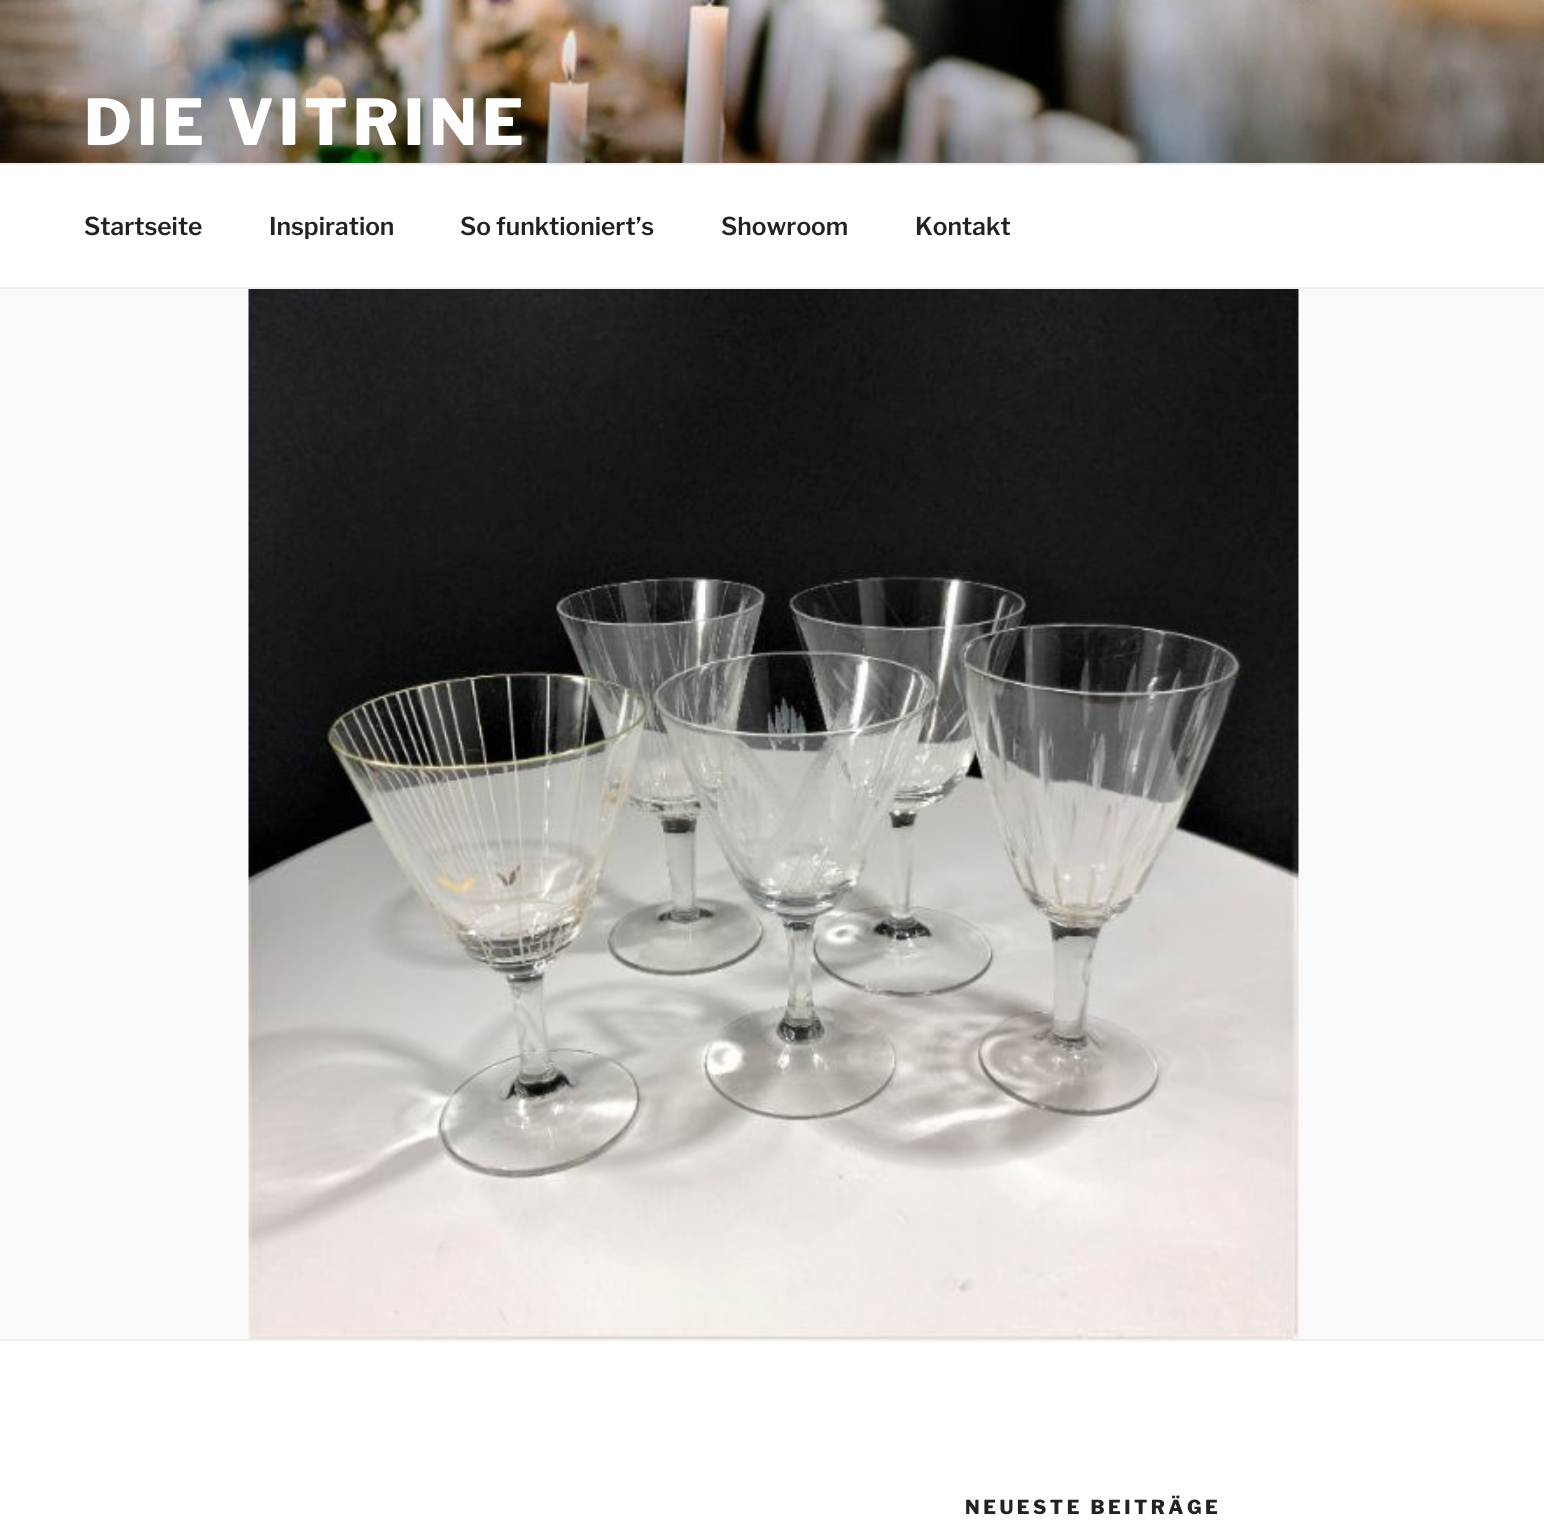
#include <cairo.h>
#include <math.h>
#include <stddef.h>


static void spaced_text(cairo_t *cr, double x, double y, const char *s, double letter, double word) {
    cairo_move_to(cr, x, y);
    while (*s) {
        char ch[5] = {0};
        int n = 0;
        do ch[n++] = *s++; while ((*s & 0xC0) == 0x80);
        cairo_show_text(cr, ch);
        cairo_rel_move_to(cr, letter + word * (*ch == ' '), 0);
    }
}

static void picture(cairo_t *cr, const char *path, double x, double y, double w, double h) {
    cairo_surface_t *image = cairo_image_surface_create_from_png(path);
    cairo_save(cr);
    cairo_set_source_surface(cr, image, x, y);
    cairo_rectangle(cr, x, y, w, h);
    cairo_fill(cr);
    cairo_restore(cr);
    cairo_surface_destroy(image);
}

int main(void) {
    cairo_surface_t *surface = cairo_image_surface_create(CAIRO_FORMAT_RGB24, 1544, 1520);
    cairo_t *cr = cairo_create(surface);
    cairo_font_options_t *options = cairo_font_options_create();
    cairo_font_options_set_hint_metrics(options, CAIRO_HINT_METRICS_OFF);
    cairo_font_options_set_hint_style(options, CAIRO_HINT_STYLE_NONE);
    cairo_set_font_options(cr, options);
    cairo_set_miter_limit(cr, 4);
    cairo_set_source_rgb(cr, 1, 1, 1);
    cairo_paint(cr);
    picture(cr, "img1.png", 0, 0, 1544, 163);
    cairo_select_font_face(cr, "Libre Franklin ExtraBold", CAIRO_FONT_SLANT_NORMAL, CAIRO_FONT_WEIGHT_NORMAL);
    cairo_set_font_size(cr, 63);
    cairo_set_source_rgb(cr, 1, 1, 1);
    spaced_text(cr, 84, 145, "DIE VITRINE", 5, 0);
    cairo_set_source_rgb(cr, 0.933, 0.933, 0.933);
    cairo_rectangle(cr, 0, 163, 1544, 2);
    cairo_fill(cr);
    cairo_rectangle(cr, 0, 287, 1544, 2);
    cairo_fill(cr);
    cairo_select_font_face(cr, "Libre Franklin SemiBold", CAIRO_FONT_SLANT_NORMAL, CAIRO_FONT_WEIGHT_NORMAL);
    cairo_set_font_size(cr, 24.5);
    cairo_set_source_rgb(cr, 0.133, 0.133, 0.133);
    cairo_move_to(cr, 84, 235);
    cairo_show_text(cr, "Startseite");
    cairo_move_to(cr, 269, 235);
    cairo_show_text(cr, "Inspiration");
    cairo_move_to(cr, 460, 235);
    cairo_show_text(cr, "So funktioniert’s");
    cairo_move_to(cr, 721, 235);
    cairo_show_text(cr, "Showroom");
    cairo_move_to(cr, 915, 235);
    cairo_show_text(cr, "Kontakt");
    cairo_set_source_rgb(cr, 0.98, 0.98, 0.98);
    cairo_rectangle(cr, 0, 289, 1544, 1050);
    cairo_fill(cr);
    cairo_set_source_rgb(cr, 0.933, 0.933, 0.933);
    cairo_rectangle(cr, 0, 1339, 1544, 2);
    cairo_fill(cr);
    picture(cr, "img2.png", 248, 289, 1051, 1050);
    cairo_select_font_face(cr, "Libre Franklin ExtraBold", CAIRO_FONT_SLANT_NORMAL, CAIRO_FONT_WEIGHT_NORMAL);
    cairo_set_font_size(cr, 19.25);
    cairo_set_source_rgb(cr, 0.133, 0.133, 0.133);
    spaced_text(cr, 965, 1514, "NEUESTE BEITRÄGE", 3.5, 0);
    cairo_surface_write_to_png(surface, "page.png");
    cairo_font_options_destroy(options);
    cairo_destroy(cr);
    cairo_surface_destroy(surface);
    return 0;
}
